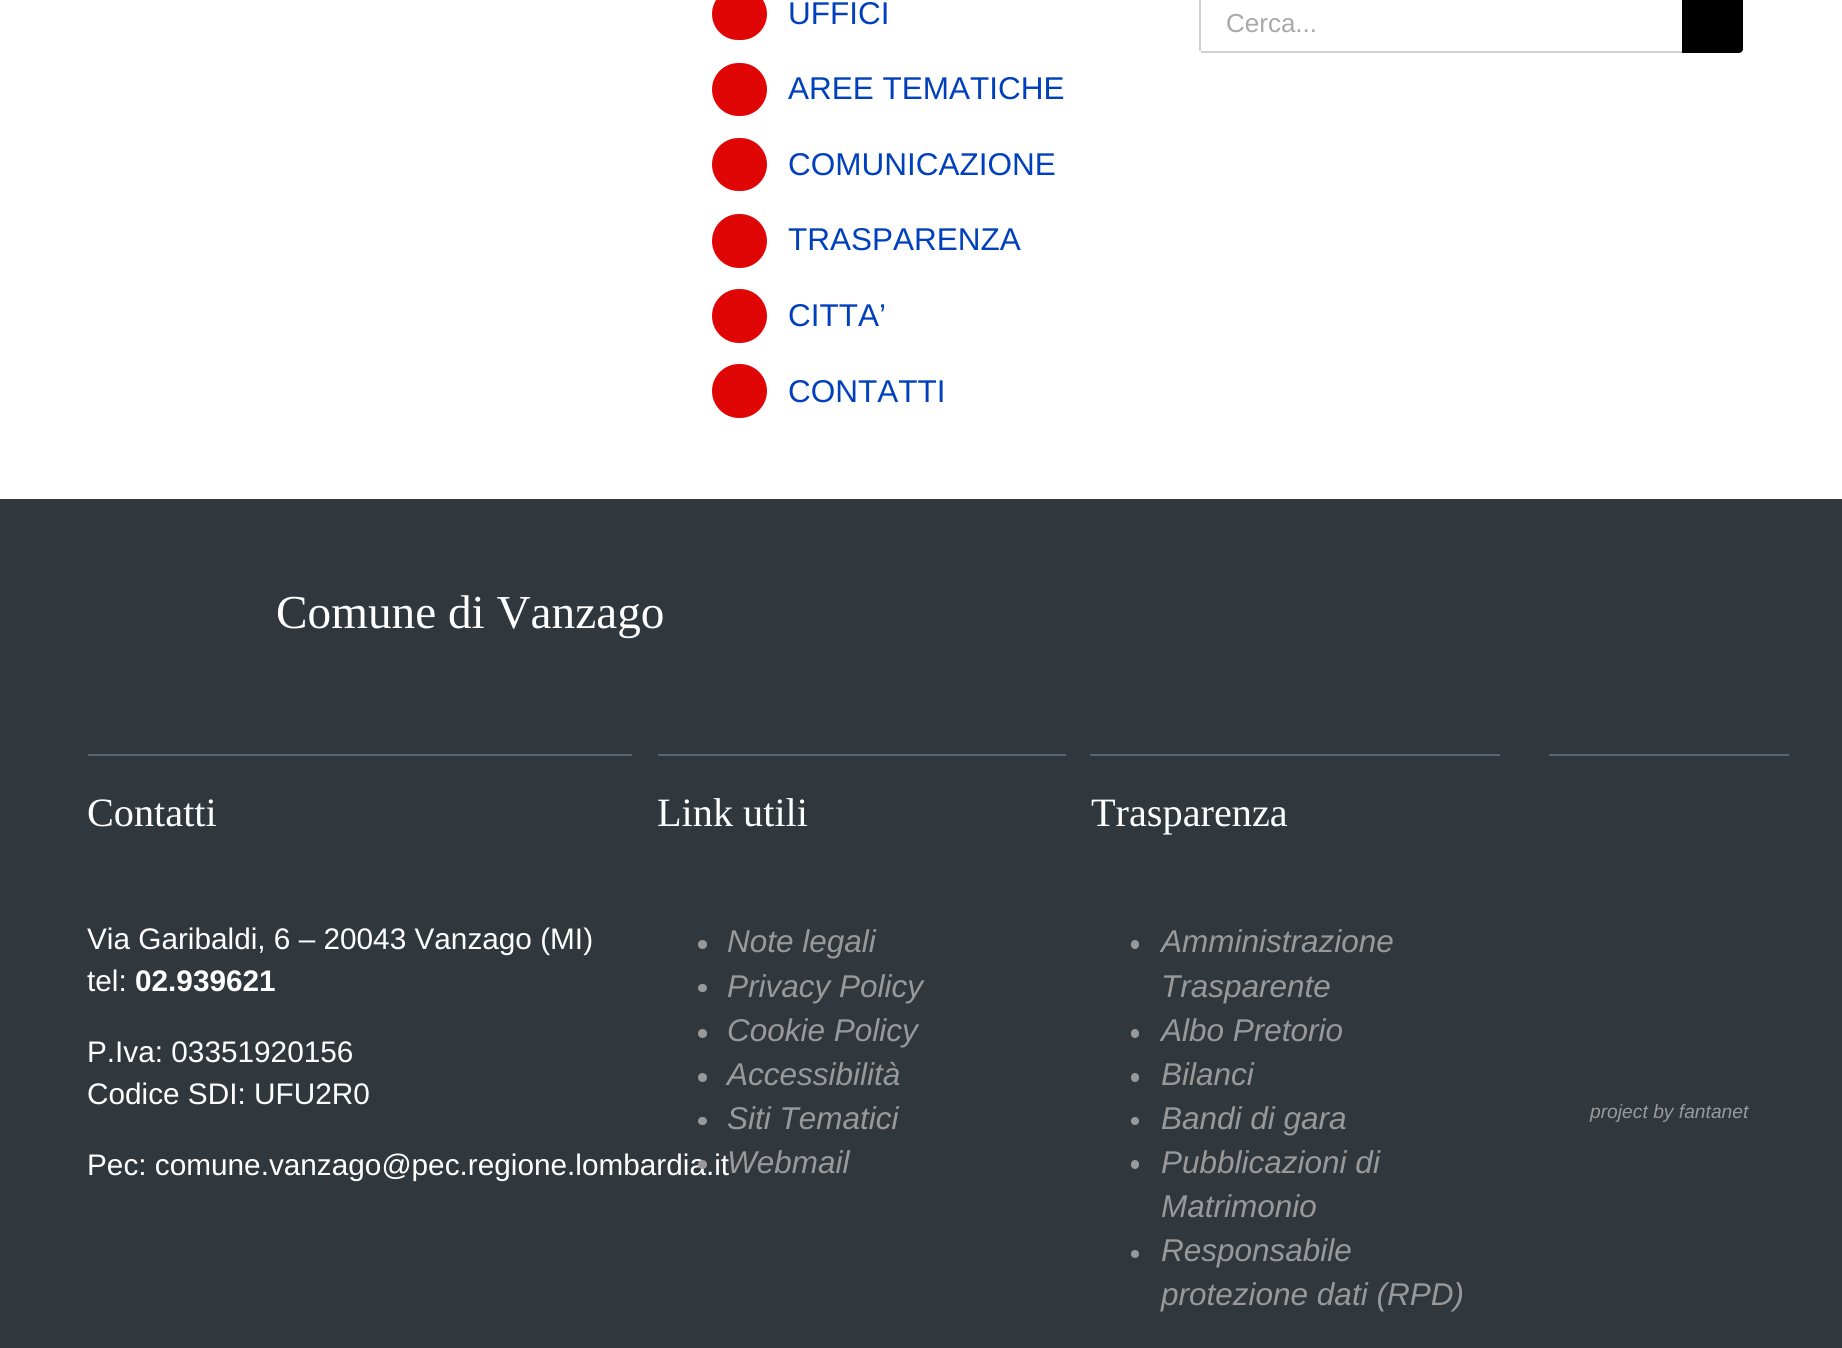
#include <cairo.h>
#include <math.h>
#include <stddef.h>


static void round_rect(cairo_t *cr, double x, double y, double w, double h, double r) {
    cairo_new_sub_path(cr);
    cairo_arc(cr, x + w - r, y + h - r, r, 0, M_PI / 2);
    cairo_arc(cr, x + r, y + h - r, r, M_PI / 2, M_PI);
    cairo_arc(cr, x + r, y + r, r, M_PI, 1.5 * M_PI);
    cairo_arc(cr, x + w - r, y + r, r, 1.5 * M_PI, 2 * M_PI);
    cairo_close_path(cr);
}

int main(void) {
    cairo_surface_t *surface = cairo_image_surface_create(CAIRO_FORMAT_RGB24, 1842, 1348);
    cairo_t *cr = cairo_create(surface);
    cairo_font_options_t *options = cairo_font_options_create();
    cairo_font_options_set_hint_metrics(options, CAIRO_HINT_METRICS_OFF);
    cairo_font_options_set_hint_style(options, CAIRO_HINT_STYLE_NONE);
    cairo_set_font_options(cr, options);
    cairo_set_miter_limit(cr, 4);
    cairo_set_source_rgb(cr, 1, 1, 1);
    cairo_paint(cr);
    cairo_set_source_rgb(cr, 0.882, 0.027, 0.027);
    round_rect(cr, 712, -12, 55, 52, 26);
    cairo_fill(cr);
    cairo_select_font_face(cr, "Liberation Sans", CAIRO_FONT_SLANT_NORMAL, CAIRO_FONT_WEIGHT_NORMAL);
    cairo_set_font_size(cr, 31.5);
    cairo_set_source_rgb(cr, 0.004, 0.251, 0.737);
    cairo_move_to(cr, 788, 24);
    cairo_show_text(cr, "UFFICI");
    cairo_set_source_rgb(cr, 0.882, 0.027, 0.027);
    round_rect(cr, 712, 63, 55, 53, 26.5);
    cairo_fill(cr);
    cairo_set_source_rgb(cr, 0.004, 0.251, 0.737);
    cairo_move_to(cr, 788, 99);
    cairo_show_text(cr, "AREE TEMATICHE");
    cairo_set_source_rgb(cr, 0.882, 0.027, 0.027);
    round_rect(cr, 712, 138, 55, 53, 26.5);
    cairo_fill(cr);
    cairo_set_source_rgb(cr, 0.004, 0.251, 0.737);
    cairo_move_to(cr, 788, 175);
    cairo_show_text(cr, "COMUNICAZIONE");
    cairo_set_source_rgb(cr, 0.882, 0.027, 0.027);
    round_rect(cr, 712, 214, 55, 54, 27);
    cairo_fill(cr);
    cairo_set_source_rgb(cr, 0.004, 0.251, 0.737);
    cairo_move_to(cr, 788, 250);
    cairo_show_text(cr, "TRASPARENZA");
    cairo_set_source_rgb(cr, 0.882, 0.027, 0.027);
    round_rect(cr, 712, 289, 55, 54, 27);
    cairo_fill(cr);
    cairo_set_source_rgb(cr, 0.004, 0.251, 0.737);
    cairo_move_to(cr, 788, 326);
    cairo_show_text(cr, "CITTA’");
    cairo_set_source_rgb(cr, 0.882, 0.027, 0.027);
    round_rect(cr, 712, 364, 55, 54, 27);
    cairo_fill(cr);
    cairo_set_source_rgb(cr, 0.004, 0.251, 0.737);
    cairo_move_to(cr, 788, 402);
    cairo_show_text(cr, "CONTATTI");
    cairo_set_source_rgb(cr, 0.824, 0.824, 0.824);
    cairo_rectangle(cr, 1201, 51, 481, 2);
    cairo_fill(cr);
    cairo_rectangle(cr, 1199, 0, 2, 51);
    cairo_fill(cr);
    cairo_set_font_size(cr, 26);
    cairo_set_source_rgb(cr, 0.667, 0.663, 0.663);
    cairo_move_to(cr, 1226, 32);
    cairo_show_text(cr, "Cerca...");
    cairo_set_source_rgb(cr, 0, 0, 0);
    cairo_new_path(cr);
    cairo_move_to(cr, 1682, -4);
    cairo_line_to(cr, 1739, -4);
    cairo_curve_to(cr, 1741, -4, 1743, -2, 1743, 0);
    cairo_line_to(cr, 1743, 49);
    cairo_curve_to(cr, 1743, 51, 1741, 53, 1739, 53);
    cairo_line_to(cr, 1682, 53);
    cairo_close_path(cr);
    cairo_fill(cr);
    cairo_set_source_rgb(cr, 0.188, 0.216, 0.239);
    cairo_rectangle(cr, 0, 499, 1842, 849);
    cairo_fill(cr);
    cairo_select_font_face(cr, "Liberation Serif", CAIRO_FONT_SLANT_NORMAL, CAIRO_FONT_WEIGHT_NORMAL);
    cairo_set_font_size(cr, 47.25);
    cairo_set_source_rgb(cr, 1, 1, 1);
    cairo_move_to(cr, 276, 628);
    cairo_show_text(cr, "Comune di Vanzago");
    cairo_set_source_rgb(cr, 0.353, 0.404, 0.447);
    cairo_rectangle(cr, 88, 754, 544, 2);
    cairo_fill(cr);
    cairo_set_font_size(cr, 40.25);
    cairo_set_source_rgb(cr, 1, 1, 1);
    cairo_move_to(cr, 87, 826);
    cairo_show_text(cr, "Contatti");
    cairo_select_font_face(cr, "Liberation Sans", CAIRO_FONT_SLANT_NORMAL, CAIRO_FONT_WEIGHT_NORMAL);
    cairo_set_font_size(cr, 29.75);
    cairo_move_to(cr, 87, 949);
    cairo_show_text(cr, "Via Garibaldi, 6 – 20043 Vanzago (MI)");
    cairo_move_to(cr, 87, 991);
    cairo_show_text(cr, "tel:");
    cairo_select_font_face(cr, "Liberation Sans", CAIRO_FONT_SLANT_NORMAL, CAIRO_FONT_WEIGHT_BOLD);
    cairo_move_to(cr, 135, 991);
    cairo_show_text(cr, "02.939621");
    cairo_select_font_face(cr, "Liberation Sans", CAIRO_FONT_SLANT_NORMAL, CAIRO_FONT_WEIGHT_NORMAL);
    cairo_move_to(cr, 87, 1062);
    cairo_show_text(cr, "P.Iva: 03351920156");
    cairo_move_to(cr, 87, 1104);
    cairo_show_text(cr, "Codice SDI: UFU2R0");
    cairo_move_to(cr, 87, 1175);
    cairo_show_text(cr, "Pec: comune.vanzago@pec.regione.lombardia.it");
    cairo_set_source_rgb(cr, 0.353, 0.404, 0.447);
    cairo_rectangle(cr, 658, 754, 408, 2);
    cairo_fill(cr);
    cairo_select_font_face(cr, "Liberation Serif", CAIRO_FONT_SLANT_NORMAL, CAIRO_FONT_WEIGHT_NORMAL);
    cairo_set_font_size(cr, 40.25);
    cairo_set_source_rgb(cr, 1, 1, 1);
    cairo_move_to(cr, 657, 826);
    cairo_show_text(cr, "Link utili");
    cairo_set_source_rgb(cr, 0.6, 0.6, 0.6);
    cairo_new_path(cr);
    cairo_arc(cr, 702.5, 944.5, 4.5, 0, 2 * M_PI);
    cairo_fill(cr);
    cairo_select_font_face(cr, "Liberation Sans", CAIRO_FONT_SLANT_ITALIC, CAIRO_FONT_WEIGHT_NORMAL);
    cairo_set_font_size(cr, 31.5);
    cairo_move_to(cr, 727, 952);
    cairo_show_text(cr, "Note legali");
    round_rect(cr, 698, 984, 9, 8, 4);
    cairo_fill(cr);
    cairo_move_to(cr, 727, 997);
    cairo_show_text(cr, "Privacy Policy");
    cairo_new_path(cr);
    cairo_arc(cr, 702.5, 1033.5, 4.5, 0, 2 * M_PI);
    cairo_fill(cr);
    cairo_move_to(cr, 727, 1041);
    cairo_show_text(cr, "Cookie Policy");
    cairo_new_path(cr);
    cairo_arc(cr, 702.5, 1077.5, 4.5, 0, 2 * M_PI);
    cairo_fill(cr);
    cairo_move_to(cr, 727, 1085);
    cairo_show_text(cr, "Accessibilità");
    round_rect(cr, 698, 1117, 9, 8, 4);
    cairo_fill(cr);
    cairo_move_to(cr, 727, 1129);
    cairo_show_text(cr, "Siti Tematici");
    cairo_new_path(cr);
    cairo_arc(cr, 702.5, 1164.5, 4.5, 0, 2 * M_PI);
    cairo_fill(cr);
    cairo_move_to(cr, 727, 1173);
    cairo_show_text(cr, "Webmail");
    cairo_set_source_rgb(cr, 0.353, 0.404, 0.447);
    cairo_rectangle(cr, 1090, 754, 410, 2);
    cairo_fill(cr);
    cairo_select_font_face(cr, "Liberation Serif", CAIRO_FONT_SLANT_NORMAL, CAIRO_FONT_WEIGHT_NORMAL);
    cairo_set_font_size(cr, 40.25);
    cairo_set_source_rgb(cr, 1, 1, 1);
    cairo_move_to(cr, 1091, 826);
    cairo_show_text(cr, "Trasparenza");
    cairo_set_source_rgb(cr, 0.6, 0.6, 0.6);
    round_rect(cr, 1131, 940, 8, 9, 4);
    cairo_fill(cr);
    cairo_select_font_face(cr, "Liberation Sans", CAIRO_FONT_SLANT_ITALIC, CAIRO_FONT_WEIGHT_NORMAL);
    cairo_set_font_size(cr, 31.5);
    cairo_move_to(cr, 1161, 952);
    cairo_show_text(cr, "Amministrazione");
    cairo_move_to(cr, 1161, 997);
    cairo_show_text(cr, "Trasparente");
    round_rect(cr, 1131, 1029, 8, 9, 4);
    cairo_fill(cr);
    cairo_move_to(cr, 1161, 1041);
    cairo_show_text(cr, "Albo Pretorio");
    round_rect(cr, 1131, 1073, 8, 9, 4);
    cairo_fill(cr);
    cairo_move_to(cr, 1161, 1085);
    cairo_show_text(cr, "Bilanci");
    cairo_new_path(cr);
    cairo_arc(cr, 1135, 1121, 4, 0, 2 * M_PI);
    cairo_fill(cr);
    cairo_move_to(cr, 1161, 1129);
    cairo_show_text(cr, "Bandi di gara");
    round_rect(cr, 1131, 1160, 8, 9, 4);
    cairo_fill(cr);
    cairo_move_to(cr, 1161, 1173);
    cairo_show_text(cr, "Pubblicazioni di");
    cairo_move_to(cr, 1161, 1217);
    cairo_show_text(cr, "Matrimonio");
    cairo_new_path(cr);
    cairo_arc(cr, 1135, 1254, 4, 0, 2 * M_PI);
    cairo_fill(cr);
    cairo_move_to(cr, 1161, 1261);
    cairo_show_text(cr, "Responsabile");
    cairo_move_to(cr, 1161, 1305);
    cairo_show_text(cr, "protezione dati (RPD)");
    cairo_set_source_rgb(cr, 0.353, 0.404, 0.447);
    cairo_rectangle(cr, 1549, 754, 240, 2);
    cairo_fill(cr);
    cairo_set_font_size(cr, 19.25);
    cairo_set_source_rgb(cr, 0.6, 0.6, 0.6);
    cairo_move_to(cr, 1590, 1118);
    cairo_show_text(cr, "project by fantanet");
    cairo_surface_write_to_png(surface, "page.png");
    cairo_font_options_destroy(options);
    cairo_destroy(cr);
    cairo_surface_destroy(surface);
    return 0;
}
